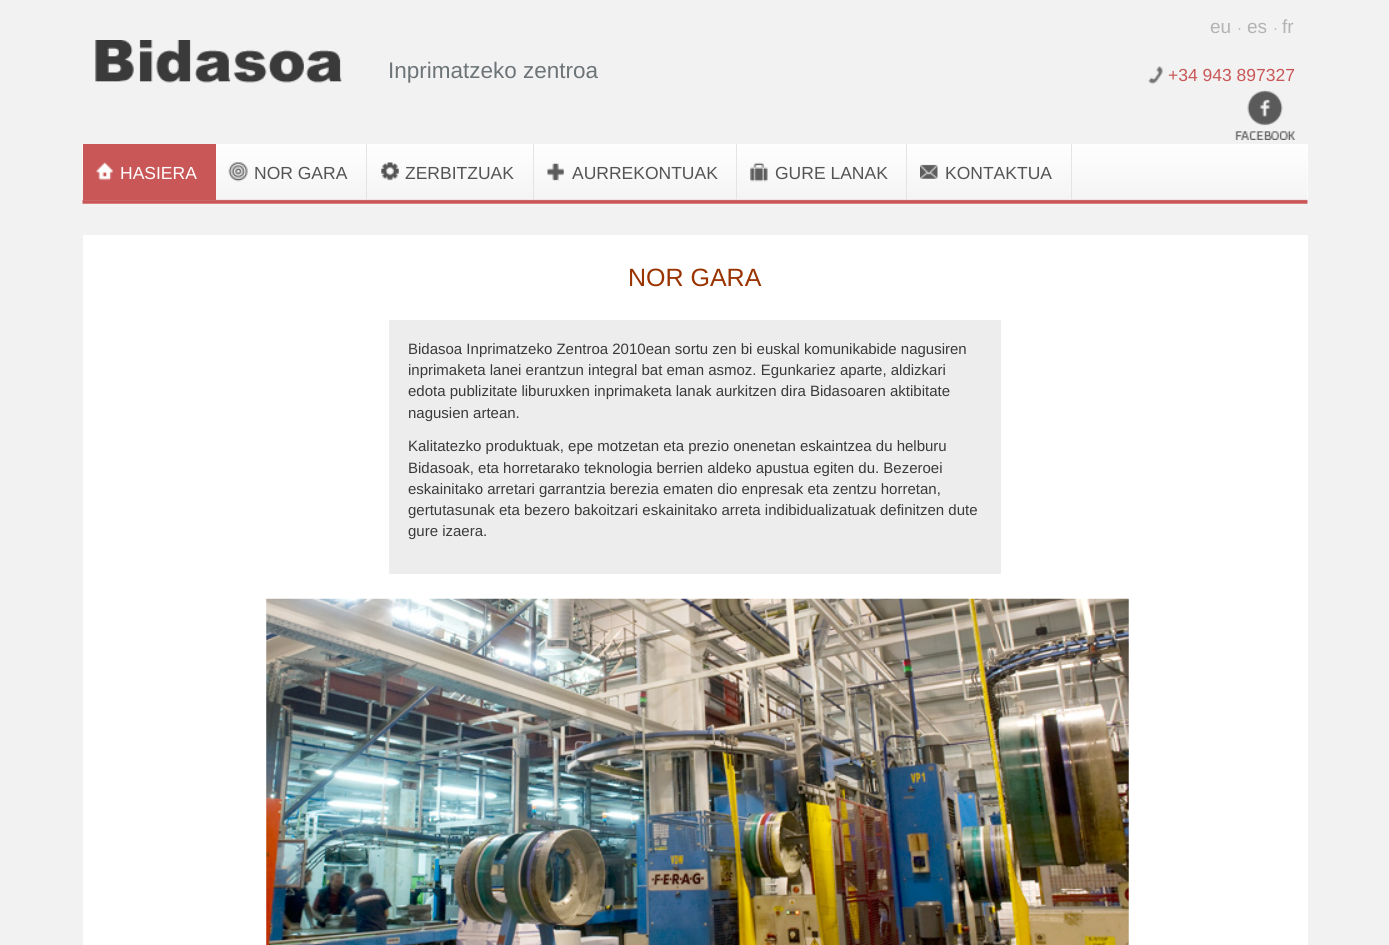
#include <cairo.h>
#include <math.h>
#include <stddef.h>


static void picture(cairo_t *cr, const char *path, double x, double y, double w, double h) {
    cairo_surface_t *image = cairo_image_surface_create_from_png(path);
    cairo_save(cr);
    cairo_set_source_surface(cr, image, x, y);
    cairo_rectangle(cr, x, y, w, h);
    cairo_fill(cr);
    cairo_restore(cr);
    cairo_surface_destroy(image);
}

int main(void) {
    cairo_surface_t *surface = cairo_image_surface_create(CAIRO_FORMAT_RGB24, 1389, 945);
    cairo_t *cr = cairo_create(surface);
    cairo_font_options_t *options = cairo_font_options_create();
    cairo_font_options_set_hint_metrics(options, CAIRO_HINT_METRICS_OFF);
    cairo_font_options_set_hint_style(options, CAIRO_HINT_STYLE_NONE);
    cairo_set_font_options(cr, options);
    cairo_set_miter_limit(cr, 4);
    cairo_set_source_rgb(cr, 0.949, 0.949, 0.949);
    cairo_paint(cr);
    picture(cr, "img1.png", 95, 40, 247, 43);
    cairo_select_font_face(cr, "Liberation Sans", CAIRO_FONT_SLANT_NORMAL, CAIRO_FONT_WEIGHT_NORMAL);
    cairo_set_font_size(cr, 22.5);
    cairo_set_source_rgb(cr, 0.427, 0.455, 0.471);
    cairo_move_to(cr, 388, 78);
    cairo_show_text(cr, "Inprimatzeko zentroa");
    cairo_set_font_size(cr, 19);
    cairo_set_source_rgb(cr, 0.702, 0.702, 0.702);
    cairo_move_to(cr, 1210, 33);
    cairo_show_text(cr, "eu");
    cairo_set_font_size(cr, 15);
    cairo_move_to(cr, 1237, 33);
    cairo_show_text(cr, "·");
    cairo_set_font_size(cr, 19);
    cairo_move_to(cr, 1247, 33);
    cairo_show_text(cr, "es");
    cairo_set_font_size(cr, 15);
    cairo_move_to(cr, 1273, 33);
    cairo_show_text(cr, "·");
    cairo_set_font_size(cr, 19);
    cairo_move_to(cr, 1282, 33);
    cairo_show_text(cr, "fr");
    picture(cr, "img2.png", 1148, 66, 15, 18);
    cairo_set_font_size(cr, 17.5);
    cairo_set_source_rgb(cr, 0.788, 0.341, 0.341);
    cairo_move_to(cr, 1168, 81);
    cairo_show_text(cr, "+34 943 897327");
    picture(cr, "img3.png", 1235, 90, 60, 50);
    cairo_set_source_rgb(cr, 1, 1, 1);
    cairo_rectangle(cr, 83, 144, 1225, 60);
    cairo_fill(cr);
    picture(cr, "img4.png", 82, 144, 1226, 60);
    cairo_set_source_rgb(cr, 0.788, 0.341, 0.341);
    cairo_rectangle(cr, 83, 144, 133, 56);
    cairo_fill(cr);
    picture(cr, "img5.png", 96, 162, 18, 19);
    cairo_set_source_rgb(cr, 1, 1, 1);
    cairo_move_to(cr, 120, 179);
    cairo_show_text(cr, "HASIERA");
    picture(cr, "img6.png", 228, 162, 20, 20);
    cairo_set_source_rgb(cr, 0.898, 0.894, 0.894);
    cairo_rectangle(cr, 366, 144, 1, 56);
    cairo_fill(cr);
    cairo_set_source_rgb(cr, 0.329, 0.329, 0.329);
    cairo_move_to(cr, 254, 179);
    cairo_show_text(cr, "NOR GARA");
    picture(cr, "img7.png", 381, 162, 18, 19);
    cairo_set_source_rgb(cr, 0.898, 0.894, 0.894);
    cairo_rectangle(cr, 533, 144, 1, 56);
    cairo_fill(cr);
    cairo_set_source_rgb(cr, 0.329, 0.329, 0.329);
    cairo_move_to(cr, 405, 179);
    cairo_show_text(cr, "ZERBITZUAK");
    picture(cr, "img8.png", 547, 163, 17, 18);
    cairo_set_source_rgb(cr, 0.898, 0.894, 0.894);
    cairo_rectangle(cr, 736, 144, 1, 56);
    cairo_fill(cr);
    cairo_set_source_rgb(cr, 0.329, 0.329, 0.329);
    cairo_move_to(cr, 572, 179);
    cairo_show_text(cr, "AURREKONTUAK");
    picture(cr, "img9.png", 750, 162, 18, 20);
    cairo_set_source_rgb(cr, 0.898, 0.894, 0.894);
    cairo_rectangle(cr, 906, 144, 1, 56);
    cairo_fill(cr);
    cairo_set_source_rgb(cr, 0.329, 0.329, 0.329);
    cairo_move_to(cr, 775, 179);
    cairo_show_text(cr, "GURE LANAK");
    picture(cr, "img10.png", 920, 164, 18, 15);
    cairo_set_source_rgb(cr, 0.898, 0.894, 0.894);
    cairo_rectangle(cr, 1071, 144, 1, 56);
    cairo_fill(cr);
    cairo_set_source_rgb(cr, 0.329, 0.329, 0.329);
    cairo_move_to(cr, 945, 179);
    cairo_show_text(cr, "KONTAKTUA");
    cairo_set_source_rgb(cr, 1, 1, 1);
    cairo_rectangle(cr, 83, 235, 1225, 710);
    cairo_fill(cr);
    cairo_set_font_size(cr, 25);
    cairo_set_source_rgb(cr, 0.6, 0.2, 0);
    cairo_move_to(cr, 628, 286);
    cairo_show_text(cr, "NOR GARA");
    cairo_set_source_rgb(cr, 0.929, 0.929, 0.929);
    cairo_rectangle(cr, 389, 320, 612, 254);
    cairo_fill(cr);
    cairo_set_font_size(cr, 15);
    cairo_set_source_rgb(cr, 0.227, 0.227, 0.227);
    cairo_move_to(cr, 408, 354);
    cairo_show_text(cr, "Bidasoa Inprimatzeko Zentroa 2010ean sortu zen bi euskal komunikabide nagusiren");
    cairo_move_to(cr, 408, 375);
    cairo_show_text(cr, "inprimaketa lanei erantzun integral bat eman asmoz. Egunkariez aparte, aldizkari");
    cairo_move_to(cr, 408, 396);
    cairo_show_text(cr, "edota publizitate liburuxken inprimaketa lanak aurkitzen dira Bidasoaren aktibitate");
    cairo_move_to(cr, 408, 418);
    cairo_show_text(cr, "nagusien artean.");
    cairo_move_to(cr, 408, 451);
    cairo_show_text(cr, "Kalitatezko produktuak, epe motzetan eta prezio onenetan eskaintzea du helburu");
    cairo_move_to(cr, 408, 473);
    cairo_show_text(cr, "Bidasoak, eta horretarako teknologia berrien aldeko apustua egiten du. Bezeroei");
    cairo_move_to(cr, 408, 494);
    cairo_show_text(cr, "eskainitako arretari garrantzia berezia ematen dio enpresak eta zentzu horretan,");
    cairo_move_to(cr, 408, 515);
    cairo_show_text(cr, "gertutasunak eta bezero bakoitzari eskainitako arreta indibidualizatuak definitzen dute");
    cairo_move_to(cr, 408, 536);
    cairo_show_text(cr, "gure izaera.");
    picture(cr, "img11.png", 266, 598, 863, 347);
    cairo_surface_write_to_png(surface, "page.png");
    cairo_font_options_destroy(options);
    cairo_destroy(cr);
    cairo_surface_destroy(surface);
    return 0;
}
